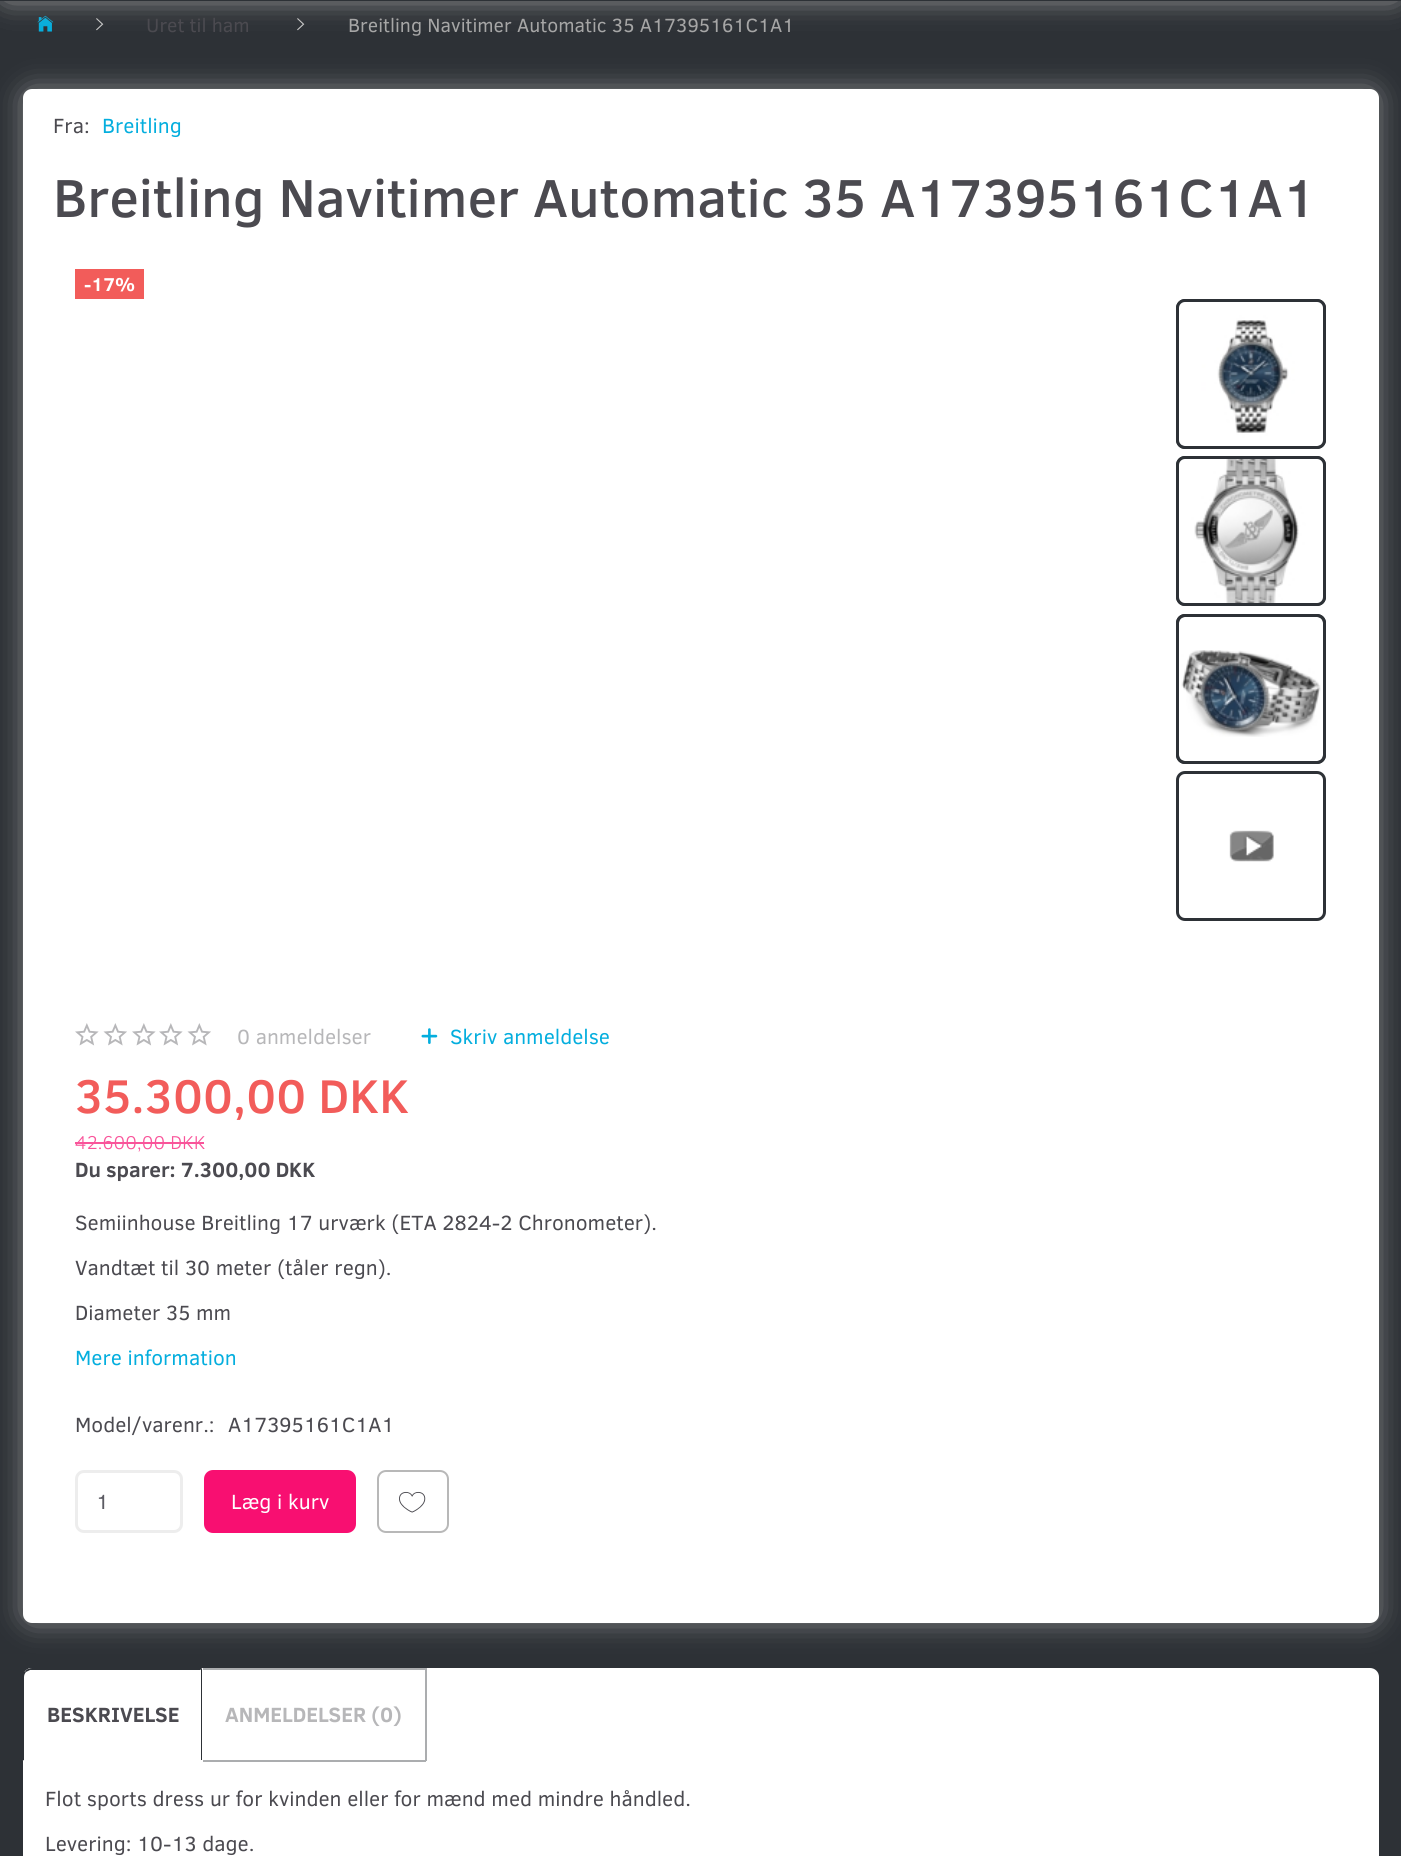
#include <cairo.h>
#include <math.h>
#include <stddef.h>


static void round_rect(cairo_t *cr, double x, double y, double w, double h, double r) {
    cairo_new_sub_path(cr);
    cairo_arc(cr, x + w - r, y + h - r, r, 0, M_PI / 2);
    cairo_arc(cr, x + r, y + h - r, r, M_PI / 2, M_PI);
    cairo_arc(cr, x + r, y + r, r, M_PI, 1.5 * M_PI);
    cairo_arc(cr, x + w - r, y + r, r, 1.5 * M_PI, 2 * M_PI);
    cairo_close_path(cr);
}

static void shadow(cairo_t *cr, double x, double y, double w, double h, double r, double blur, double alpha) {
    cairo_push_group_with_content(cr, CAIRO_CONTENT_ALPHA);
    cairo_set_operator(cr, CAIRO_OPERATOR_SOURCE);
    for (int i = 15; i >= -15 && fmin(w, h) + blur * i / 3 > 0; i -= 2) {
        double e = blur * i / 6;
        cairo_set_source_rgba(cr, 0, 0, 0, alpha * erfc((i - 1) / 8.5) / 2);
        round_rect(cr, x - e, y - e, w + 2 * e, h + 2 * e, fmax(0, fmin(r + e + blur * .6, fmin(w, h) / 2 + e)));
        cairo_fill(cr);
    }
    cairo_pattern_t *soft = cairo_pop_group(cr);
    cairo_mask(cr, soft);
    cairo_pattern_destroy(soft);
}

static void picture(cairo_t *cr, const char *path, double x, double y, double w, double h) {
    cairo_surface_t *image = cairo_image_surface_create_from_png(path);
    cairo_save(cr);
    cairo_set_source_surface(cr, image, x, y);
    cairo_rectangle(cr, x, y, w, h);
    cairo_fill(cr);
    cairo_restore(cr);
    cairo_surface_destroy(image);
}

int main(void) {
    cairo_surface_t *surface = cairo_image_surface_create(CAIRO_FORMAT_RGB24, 1401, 1856);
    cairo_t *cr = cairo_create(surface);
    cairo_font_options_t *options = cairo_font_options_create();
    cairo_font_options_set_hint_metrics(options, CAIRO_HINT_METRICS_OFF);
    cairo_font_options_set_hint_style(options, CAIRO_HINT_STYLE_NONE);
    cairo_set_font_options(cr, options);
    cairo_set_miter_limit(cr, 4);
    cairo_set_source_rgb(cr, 0.176, 0.192, 0.212);
    cairo_paint(cr);
    picture(cr, "img1.png", 37, 15, 17, 17);
    picture(cr, "img2.png", 96, 18, 8, 13);
    picture(cr, "img2.png", 297, 18, 8, 13);
    cairo_set_source_rgb(cr, 0.58, 0.58, 0.58);
    shadow(cr, 8, -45, 1386, 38, 0, 15, 1);
    shadow(cr, 8, -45, 1386, 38, 0, 15, 1);
    cairo_set_source_rgb(cr, 0.176, 0.192, 0.212);
    cairo_rectangle(cr, 0, 0, 1401, 1);
    cairo_fill(cr);
    cairo_select_font_face(cr, "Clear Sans", CAIRO_FONT_SLANT_NORMAL, CAIRO_FONT_WEIGHT_NORMAL);
    cairo_set_font_size(cr, 19.5);
    cairo_set_source_rgb(cr, 0.294, 0.29, 0.314);
    cairo_move_to(cr, 146, 32);
    cairo_show_text(cr, "Uret til ham");
    cairo_set_source_rgb(cr, 0.651, 0.651, 0.651);
    cairo_move_to(cr, 348, 32);
    cairo_show_text(cr, "Breitling Navitimer Automatic 35 A17395161C1A1");
    cairo_set_source_rgb(cr, 0.722, 0.722, 0.722);
    shadow(cr, 30, 96, 1341, 1520, 1.5, 15, 1);
    cairo_set_source_rgb(cr, 1, 1, 1);
    round_rect(cr, 23, 89, 1356, 1534, 9);
    cairo_fill(cr);
    cairo_set_font_size(cr, 21);
    cairo_set_source_rgb(cr, 0.294, 0.29, 0.314);
    cairo_move_to(cr, 53, 133);
    cairo_show_text(cr, "Fra:");
    cairo_set_source_rgb(cr, 0.016, 0.682, 0.871);
    cairo_move_to(cr, 102, 133);
    cairo_show_text(cr, "Breitling");
    cairo_select_font_face(cr, "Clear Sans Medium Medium", CAIRO_FONT_SLANT_NORMAL, CAIRO_FONT_WEIGHT_NORMAL);
    cairo_set_font_size(cr, 54.6);
    cairo_set_source_rgb(cr, 0.294, 0.29, 0.314);
    cairo_move_to(cr, 53, 217);
    cairo_show_text(cr, "Breitling Navitimer Automatic 35 A17395161C1A1");
    cairo_set_source_rgb(cr, 0.949, 0.361, 0.353);
    cairo_rectangle(cr, 75, 269, 69, 30);
    cairo_fill(cr);
    cairo_select_font_face(cr, "Clear Sans", CAIRO_FONT_SLANT_NORMAL, CAIRO_FONT_WEIGHT_BOLD);
    cairo_set_font_size(cr, 19);
    cairo_set_source_rgb(cr, 1, 1, 1);
    cairo_move_to(cr, 84, 291);
    cairo_show_text(cr, "-17%");
    round_rect(cr, 1177.5, 300.5, 147, 147, 7.5);
    cairo_set_source_rgb(cr, 0.176, 0.192, 0.212);
    cairo_set_line_width(cr, 3);
    cairo_stroke(cr);
    picture(cr, "img3.png", 1179, 301, 144, 145);
    round_rect(cr, 1177.5, 300.5, 147, 147, 7.5);
    cairo_stroke(cr);
    round_rect(cr, 1177.5, 457.5, 147, 147, 7.5);
    cairo_stroke(cr);
    picture(cr, "img4.png", 1179, 459, 144, 144);
    round_rect(cr, 1177.5, 457.5, 147, 147, 7.5);
    cairo_stroke(cr);
    round_rect(cr, 1177.5, 615.5, 147, 147, 7.5);
    cairo_stroke(cr);
    picture(cr, "img5.png", 1181, 650, 140, 87);
    round_rect(cr, 1177.5, 615.5, 147, 147, 7.5);
    cairo_stroke(cr);
    round_rect(cr, 1177.5, 772.5, 147, 147, 7.5);
    cairo_stroke(cr);
    picture(cr, "img6.png", 1229, 830, 45, 32);
    picture(cr, "img7.png", 75, 1023, 24, 23);
    picture(cr, "img8.png", 103, 1023, 24, 23);
    picture(cr, "img7.png", 132, 1023, 24, 23);
    picture(cr, "img7.png", 159, 1023, 24, 23);
    picture(cr, "img8.png", 187, 1023, 24, 23);
    cairo_select_font_face(cr, "Clear Sans", CAIRO_FONT_SLANT_NORMAL, CAIRO_FONT_WEIGHT_NORMAL);
    cairo_set_font_size(cr, 21);
    cairo_set_source_rgb(cr, 0.718, 0.718, 0.725);
    cairo_move_to(cr, 237, 1044);
    cairo_show_text(cr, "0 anmeldelser");
    picture(cr, "img9.png", 421, 1028, 17, 16);
    cairo_set_source_rgb(cr, 0.016, 0.682, 0.871);
    cairo_move_to(cr, 450, 1044);
    cairo_show_text(cr, "Skriv anmeldelse");
    cairo_select_font_face(cr, "Clear Sans Medium Medium", CAIRO_FONT_SLANT_NORMAL, CAIRO_FONT_WEIGHT_NORMAL);
    cairo_set_font_size(cr, 48.25);
    cairo_set_source_rgb(cr, 0.949, 0.361, 0.353);
    cairo_move_to(cr, 75, 1113);
    cairo_show_text(cr, "35.300,00 DKK");
    cairo_select_font_face(cr, "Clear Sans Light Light", CAIRO_FONT_SLANT_NORMAL, CAIRO_FONT_WEIGHT_NORMAL);
    cairo_set_font_size(cr, 19);
    cairo_set_source_rgb(cr, 0.976, 0.329, 0.604);
    cairo_move_to(cr, 75, 1149);
    cairo_show_text(cr, "42.600,00 DKK");
    cairo_rectangle(cr, 75, 1142, 129, 2);
    cairo_fill(cr);
    cairo_select_font_face(cr, "Clear Sans", CAIRO_FONT_SLANT_NORMAL, CAIRO_FONT_WEIGHT_BOLD);
    cairo_set_font_size(cr, 21);
    cairo_set_source_rgb(cr, 0.294, 0.29, 0.314);
    cairo_move_to(cr, 75, 1177);
    cairo_show_text(cr, "Du sparer: 7.300,00 DKK");
    cairo_select_font_face(cr, "Clear Sans", CAIRO_FONT_SLANT_NORMAL, CAIRO_FONT_WEIGHT_NORMAL);
    cairo_move_to(cr, 75, 1230);
    cairo_show_text(cr, "Semiinhouse Breitling 17 urværk (ETA 2824-2 Chronometer).");
    cairo_move_to(cr, 75, 1275);
    cairo_show_text(cr, "Vandtæt til 30 meter (tåler regn).");
    cairo_move_to(cr, 75, 1320);
    cairo_show_text(cr, "Diameter 35 mm");
    cairo_set_source_rgb(cr, 0.016, 0.682, 0.871);
    cairo_move_to(cr, 75, 1365);
    cairo_show_text(cr, "Mere information");
    cairo_set_source_rgb(cr, 0.294, 0.29, 0.314);
    cairo_move_to(cr, 75, 1432);
    cairo_show_text(cr, "Model/varenr.:");
    cairo_move_to(cr, 228, 1432);
    cairo_show_text(cr, "A17395161C1A1");
    round_rect(cr, 76.5, 1471.5, 105, 60, 7.5);
    cairo_set_source_rgb(cr, 0.929, 0.929, 0.929);
    cairo_stroke(cr);
    cairo_set_source_rgb(cr, 0.361, 0.357, 0.388);
    cairo_move_to(cr, 96, 1509);
    cairo_show_text(cr, "1");
    cairo_set_source_rgb(cr, 0.969, 0.059, 0.443);
    round_rect(cr, 204, 1470, 152, 63, 9);
    cairo_fill(cr);
    cairo_set_source_rgb(cr, 1, 1, 1);
    cairo_move_to(cr, 231, 1509);
    cairo_show_text(cr, "Læg i kurv");
    round_rect(cr, 378, 1471, 70, 61, 8);
    cairo_set_source_rgb(cr, 0.722, 0.722, 0.722);
    cairo_set_line_width(cr, 2);
    cairo_stroke(cr);
    picture(cr, "img10.png", 399, 1491, 27, 22);
    cairo_set_source_rgb(cr, 1, 1, 1);
    cairo_new_path(cr);
    cairo_move_to(cr, 32, 1668);
    cairo_line_to(cr, 1370, 1668);
    cairo_curve_to(cr, 1375, 1668, 1379, 1672, 1379, 1677);
    cairo_line_to(cr, 1379, 1761);
    cairo_line_to(cr, 23, 1761);
    cairo_line_to(cr, 23, 1677);
    cairo_curve_to(cr, 23, 1672, 27, 1668, 32, 1668);
    cairo_close_path(cr);
    cairo_fill(cr);
    cairo_new_path(cr);
    cairo_move_to(cr, 32, 1668);
    cairo_line_to(cr, 203, 1668);
    cairo_line_to(cr, 203, 1761);
    cairo_line_to(cr, 23, 1761);
    cairo_line_to(cr, 23, 1677);
    cairo_curve_to(cr, 23, 1672, 27, 1668, 32, 1668);
    cairo_close_path(cr);
    cairo_fill(cr);
    cairo_set_source_rgb(cr, 0.176, 0.192, 0.212);
    cairo_new_path(cr);
    cairo_move_to(cr, 32, 1668);
    cairo_curve_to(cr, 30, 1668, 27, 1669, 25, 1671);
    cairo_line_to(cr, 26, 1672);
    cairo_line_to(cr, 30, 1670);
    cairo_line_to(cr, 200, 1670);
    cairo_line_to(cr, 202, 1668);
    cairo_close_path(cr);
    cairo_fill(cr);
    cairo_new_path(cr);
    cairo_move_to(cr, 202, 1668);
    cairo_line_to(cr, 202, 1760);
    cairo_line_to(cr, 201, 1760);
    cairo_line_to(cr, 201, 1670);
    cairo_line_to(cr, 200, 1670);
    cairo_close_path(cr);
    cairo_fill(cr);
    cairo_set_source_rgb(cr, 1, 1, 1);
    cairo_new_path(cr);
    cairo_move_to(cr, 22, 1761);
    cairo_line_to(cr, 202, 1761);
    cairo_line_to(cr, 202, 1760);
    cairo_line_to(cr, 201, 1760);
    cairo_line_to(cr, 24, 1760);
    cairo_close_path(cr);
    cairo_fill(cr);
    cairo_set_source_rgb(cr, 0.176, 0.192, 0.212);
    cairo_new_path(cr);
    cairo_move_to(cr, 22, 1761);
    cairo_line_to(cr, 22, 1674);
    cairo_line_to(cr, 25, 1671);
    cairo_line_to(cr, 26, 1672);
    cairo_curve_to(cr, 25, 1673, 24, 1675, 24, 1677);
    cairo_line_to(cr, 24, 1760);
    cairo_close_path(cr);
    cairo_fill(cr);
    cairo_select_font_face(cr, "Clear Sans", CAIRO_FONT_SLANT_NORMAL, CAIRO_FONT_WEIGHT_BOLD);
    cairo_set_source_rgb(cr, 0.294, 0.29, 0.314);
    cairo_move_to(cr, 47, 1722);
    cairo_show_text(cr, "BESKRIVELSE");
    cairo_set_source_rgb(cr, 0.671, 0.678, 0.686);
    cairo_rectangle(cr, 203, 1668, 223, 2);
    cairo_fill(cr);
    cairo_rectangle(cr, 425, 1668, 2, 93);
    cairo_fill(cr);
    cairo_set_source_rgb(cr, 1, 1, 1);
    cairo_rectangle(cr, 23, 1761, 1356, 95);
    cairo_fill(cr);
    cairo_set_source_rgb(cr, 0.671, 0.678, 0.686);
    cairo_rectangle(cr, 203, 1760, 223, 2);
    cairo_fill(cr);
    cairo_set_source_rgb(cr, 0.718, 0.718, 0.725);
    cairo_move_to(cr, 225, 1722);
    cairo_show_text(cr, "ANMELDELSER (0)");
    cairo_select_font_face(cr, "Clear Sans", CAIRO_FONT_SLANT_NORMAL, CAIRO_FONT_WEIGHT_NORMAL);
    cairo_set_source_rgb(cr, 0.294, 0.29, 0.314);
    cairo_move_to(cr, 45, 1806);
    cairo_show_text(cr, "Flot sports dress ur for kvinden eller for mænd med mindre håndled.");
    cairo_move_to(cr, 45, 1851);
    cairo_show_text(cr, "Levering: 10-13 dage.");
    cairo_surface_write_to_png(surface, "page.png");
    cairo_font_options_destroy(options);
    cairo_destroy(cr);
    cairo_surface_destroy(surface);
    return 0;
}
